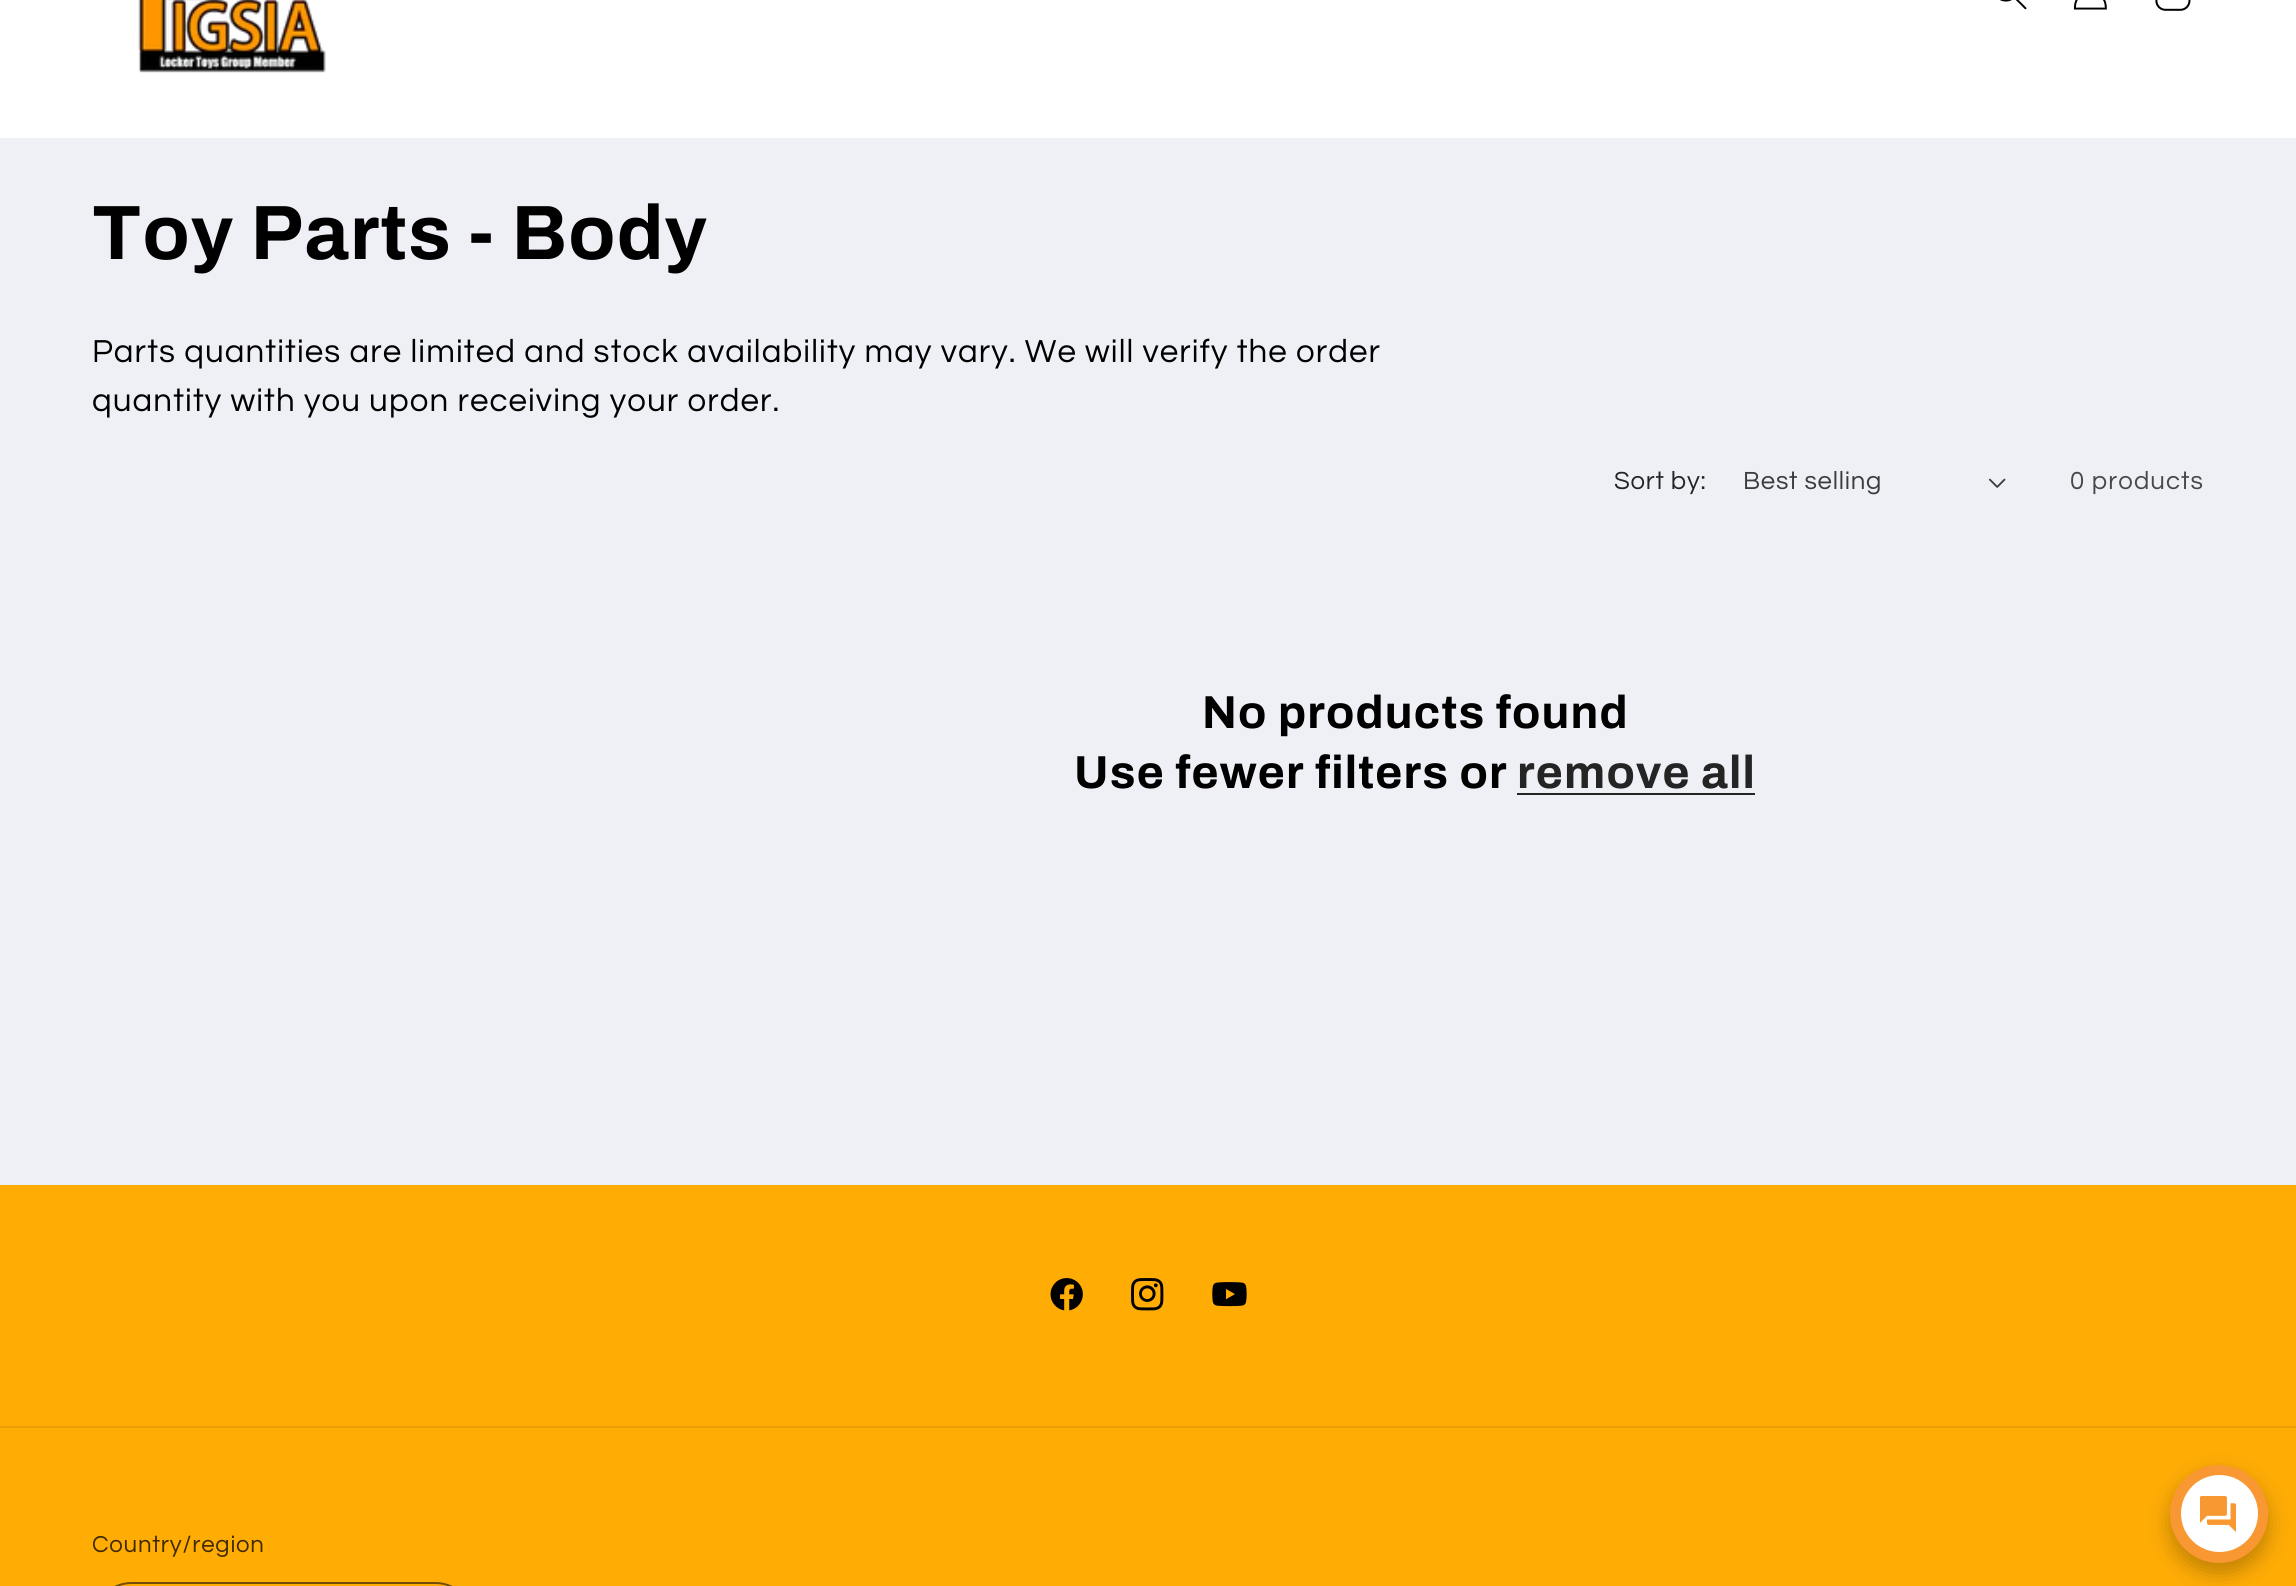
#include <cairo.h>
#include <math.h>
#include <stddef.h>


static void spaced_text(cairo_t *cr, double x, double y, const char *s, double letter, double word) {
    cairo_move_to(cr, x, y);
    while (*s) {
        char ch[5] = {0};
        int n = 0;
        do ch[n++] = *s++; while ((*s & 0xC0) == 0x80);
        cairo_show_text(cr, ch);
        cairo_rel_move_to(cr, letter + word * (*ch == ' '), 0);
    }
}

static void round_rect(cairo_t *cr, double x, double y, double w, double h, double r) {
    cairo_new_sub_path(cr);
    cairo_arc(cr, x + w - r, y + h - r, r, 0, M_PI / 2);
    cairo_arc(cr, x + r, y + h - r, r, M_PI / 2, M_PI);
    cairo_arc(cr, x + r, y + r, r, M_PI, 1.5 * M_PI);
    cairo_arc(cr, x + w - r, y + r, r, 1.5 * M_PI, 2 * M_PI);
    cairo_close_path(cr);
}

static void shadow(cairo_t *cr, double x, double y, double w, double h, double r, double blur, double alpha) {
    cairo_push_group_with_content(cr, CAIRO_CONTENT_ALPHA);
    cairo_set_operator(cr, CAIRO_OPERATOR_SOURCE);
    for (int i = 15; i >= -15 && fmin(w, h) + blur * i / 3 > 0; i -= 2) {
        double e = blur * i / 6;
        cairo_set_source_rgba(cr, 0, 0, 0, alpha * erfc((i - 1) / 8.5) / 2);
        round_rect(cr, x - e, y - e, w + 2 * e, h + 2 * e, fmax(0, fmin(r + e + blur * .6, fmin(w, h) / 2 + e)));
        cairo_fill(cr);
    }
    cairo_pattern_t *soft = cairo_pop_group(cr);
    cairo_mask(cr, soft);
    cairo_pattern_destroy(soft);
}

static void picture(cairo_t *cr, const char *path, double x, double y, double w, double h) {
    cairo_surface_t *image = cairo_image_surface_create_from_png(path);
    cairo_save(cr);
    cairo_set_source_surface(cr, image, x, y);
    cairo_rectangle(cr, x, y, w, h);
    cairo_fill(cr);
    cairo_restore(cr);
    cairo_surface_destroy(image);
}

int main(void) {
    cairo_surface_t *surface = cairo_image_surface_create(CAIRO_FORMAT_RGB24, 2296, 1586);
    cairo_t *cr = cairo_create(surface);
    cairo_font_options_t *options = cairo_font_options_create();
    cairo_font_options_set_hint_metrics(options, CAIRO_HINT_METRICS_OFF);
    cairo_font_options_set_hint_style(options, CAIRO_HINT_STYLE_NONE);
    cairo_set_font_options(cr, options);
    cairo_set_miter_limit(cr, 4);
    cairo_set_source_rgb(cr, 0.937, 0.941, 0.961);
    cairo_paint(cr);
    cairo_set_source_rgb(cr, 1, 1, 1);
    cairo_rectangle(cr, 0, 0, 2296, 138);
    cairo_fill(cr);
    picture(cr, "img1.png", 138, 0, 188, 73);
    picture(cr, "img2.png", 2000, 0, 27, 10);
    picture(cr, "img3.png", 2073, 0, 34, 10);
    picture(cr, "img4.png", 2155, 0, 36, 11);
    cairo_select_font_face(cr, "Archivo", CAIRO_FONT_SLANT_NORMAL, CAIRO_FONT_WEIGHT_BOLD);
    cairo_set_font_size(cr, 77);
    cairo_set_source_rgb(cr, 0, 0, 0);
    spaced_text(cr, 92, 259, "Toy Parts - Body", 1.2, 0);
    cairo_select_font_face(cr, "Questrial", CAIRO_FONT_SLANT_NORMAL, CAIRO_FONT_WEIGHT_NORMAL);
    cairo_set_font_size(cr, 33.05);
    spaced_text(cr, 92, 362, "Parts quantities are limited and stock availability may vary. We will verify the order", 1.1, 0);
    spaced_text(cr, 92, 411, "quantity with you upon receiving your order.", 1.1, 0);
    cairo_set_font_size(cr, 25.75);
    cairo_set_source_rgb(cr, 0.141, 0.141, 0.145);
    spaced_text(cr, 1614, 489, "Sort by:", 0.75, 0);
    cairo_set_source_rgb(cr, 0.235, 0.235, 0.239);
    spaced_text(cr, 1743, 489, "Best selling", 0.75, 0);
    picture(cr, "img5.png", 1989, 478, 17, 10);
    cairo_set_source_rgb(cr, 0.282, 0.282, 0.29);
    spaced_text(cr, 2070, 489, "0 products", 1.1, 0);
    cairo_select_font_face(cr, "Archivo", CAIRO_FONT_SLANT_NORMAL, CAIRO_FONT_WEIGHT_BOLD);
    cairo_set_font_size(cr, 46.25);
    cairo_set_source_rgb(cr, 0, 0, 0);
    spaced_text(cr, 1202, 728, "No products found", 1.2, 0);
    spaced_text(cr, 1074, 788, "Use fewer filters or", 1.2, 0);
    cairo_set_source_rgb(cr, 0.141, 0.141, 0.145);
    spaced_text(cr, 1517, 788, "remove all", 1.2, 0);
    cairo_rectangle(cr, 1517, 793, 238, 2);
    cairo_fill(cr);
    cairo_set_source_rgb(cr, 1, 0.675, 0.02);
    cairo_rectangle(cr, 0, 1185, 2296, 401);
    cairo_fill(cr);
    picture(cr, "img6.png", 1050, 1278, 33, 33);
    picture(cr, "img7.png", 1131, 1278, 33, 33);
    picture(cr, "img8.png", 1212, 1282, 35, 25);
    cairo_set_source_rgb(cr, 0.922, 0.62, 0.02);
    cairo_rectangle(cr, 0, 1426, 2296, 2);
    cairo_fill(cr);
    cairo_select_font_face(cr, "Questrial", CAIRO_FONT_SLANT_NORMAL, CAIRO_FONT_WEIGHT_NORMAL);
    cairo_set_font_size(cr, 24);
    cairo_set_source_rgb(cr, 0.251, 0.169, 0.004);
    spaced_text(cr, 92, 1552, "Country/region", 0.75, 0);
    round_rect(cr, 94, 1583, 379, 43, 37.5);
    cairo_set_source_rgb(cr, 0.451, 0.302, 0.008);
    cairo_stroke(cr);
    cairo_set_source_rgb(cr, 0, 0, 0);
    shadow(cr, 2170, 1475, 98, 98, 49, 10.5, 0.25);
    cairo_set_source_rgb(cr, 0.973, 0.596, 0.2);
    cairo_arc(cr, 2219, 1514, 49, 0, 2 * M_PI);
    cairo_fill(cr);
    cairo_set_source_rgb(cr, 1, 1, 1);
    cairo_arc(cr, 2219.5, 1513.5, 38.5, 0, 2 * M_PI);
    cairo_fill(cr);
    picture(cr, "img9.png", 2200, 1496, 36, 36);
    cairo_surface_write_to_png(surface, "page.png");
    cairo_font_options_destroy(options);
    cairo_destroy(cr);
    cairo_surface_destroy(surface);
    return 0;
}
